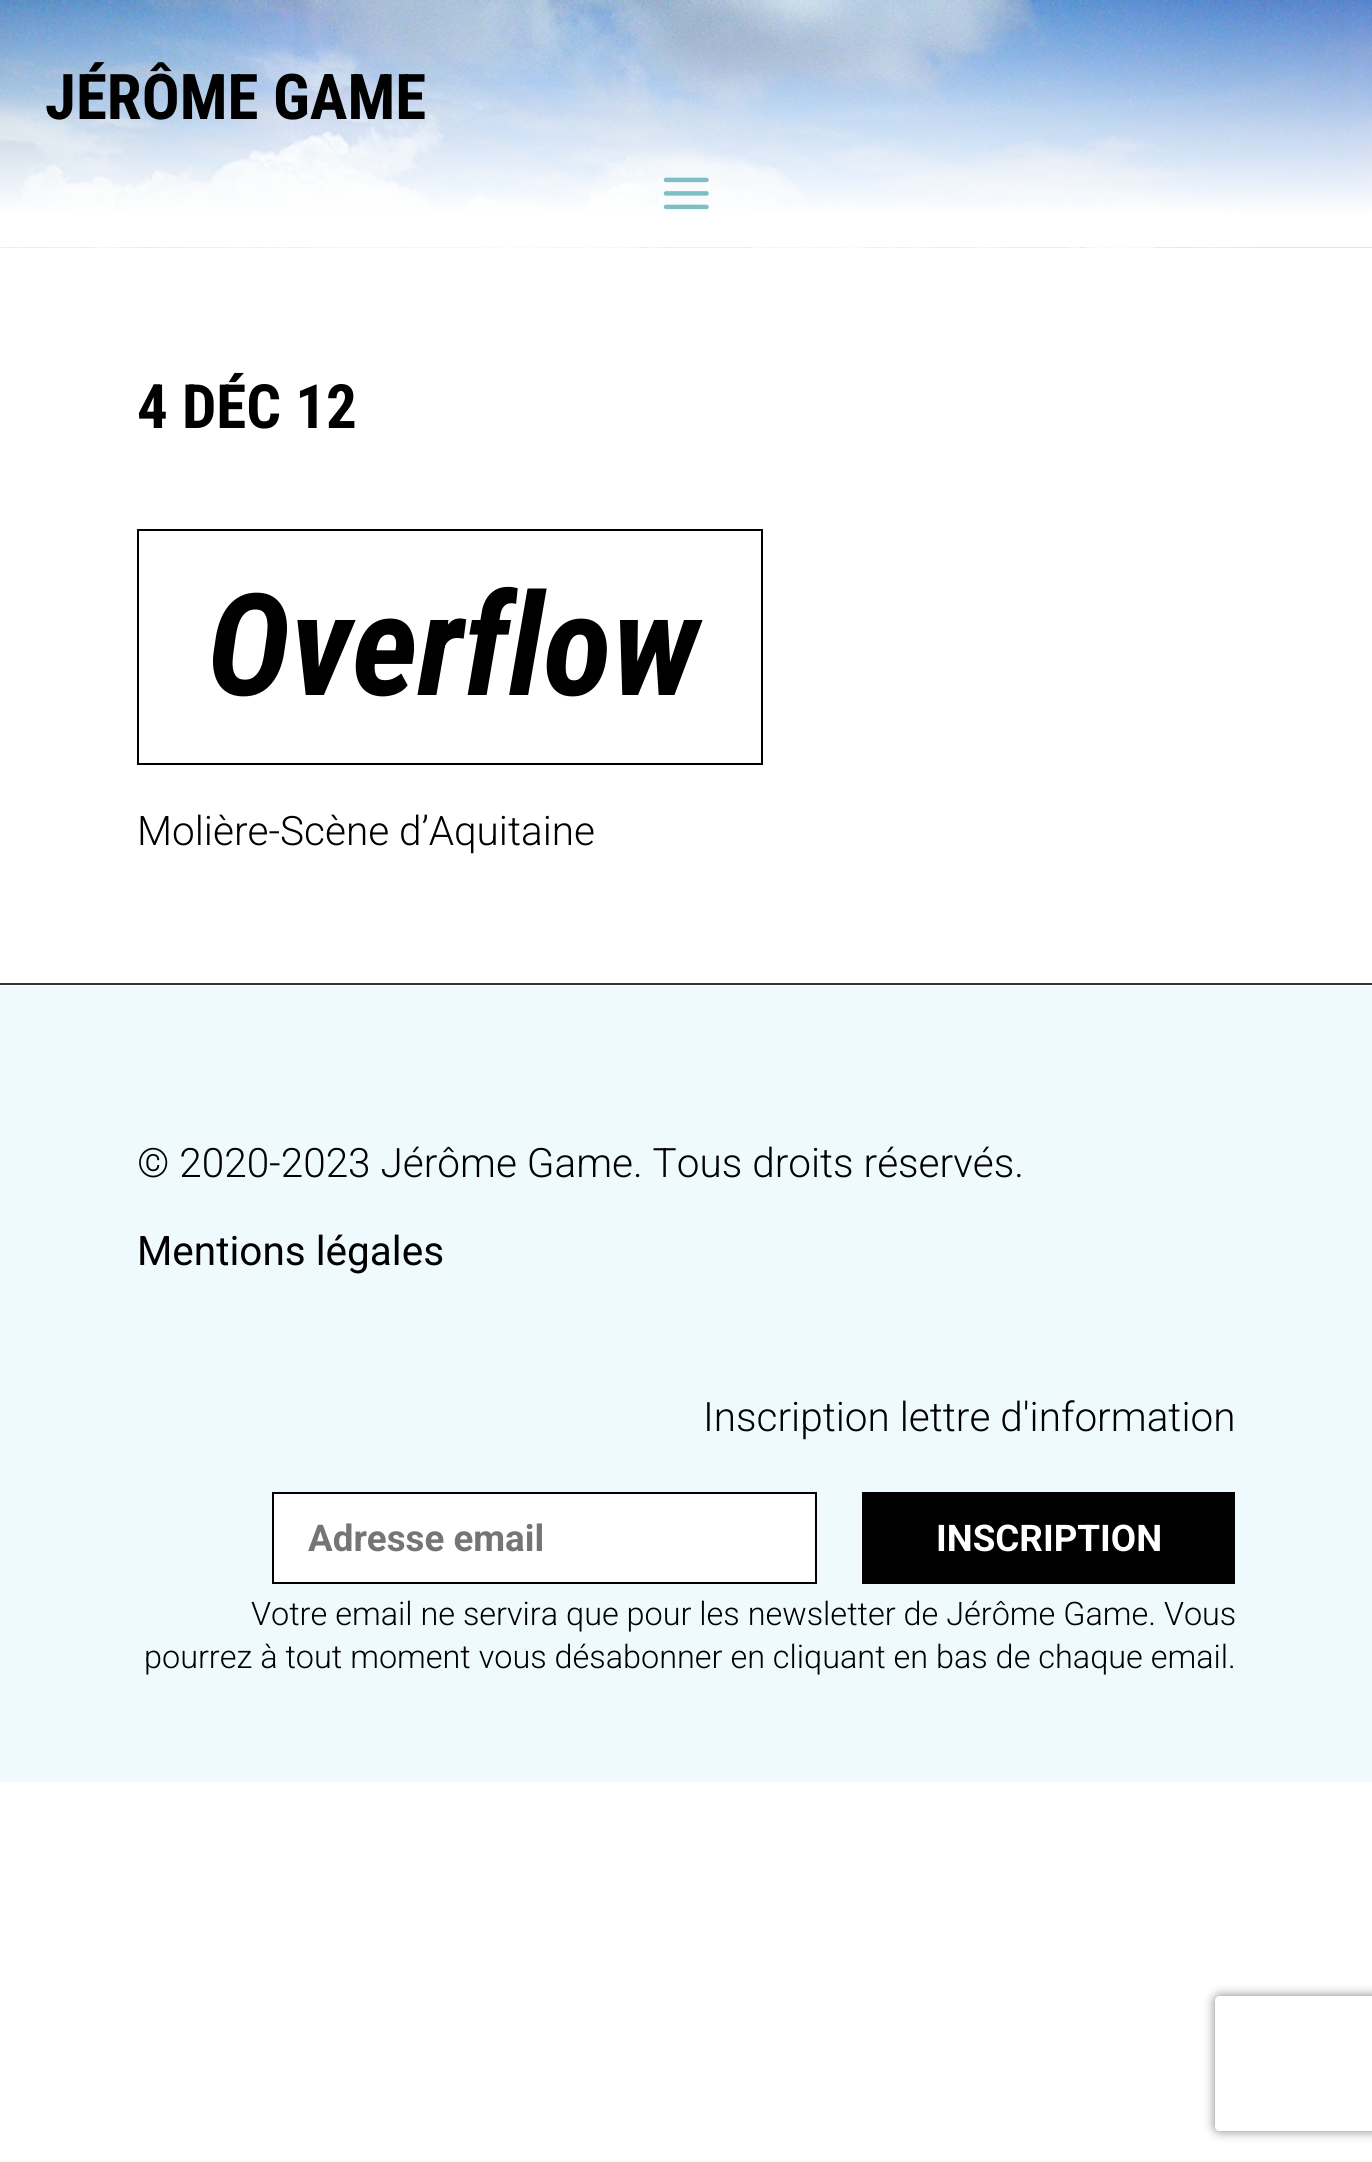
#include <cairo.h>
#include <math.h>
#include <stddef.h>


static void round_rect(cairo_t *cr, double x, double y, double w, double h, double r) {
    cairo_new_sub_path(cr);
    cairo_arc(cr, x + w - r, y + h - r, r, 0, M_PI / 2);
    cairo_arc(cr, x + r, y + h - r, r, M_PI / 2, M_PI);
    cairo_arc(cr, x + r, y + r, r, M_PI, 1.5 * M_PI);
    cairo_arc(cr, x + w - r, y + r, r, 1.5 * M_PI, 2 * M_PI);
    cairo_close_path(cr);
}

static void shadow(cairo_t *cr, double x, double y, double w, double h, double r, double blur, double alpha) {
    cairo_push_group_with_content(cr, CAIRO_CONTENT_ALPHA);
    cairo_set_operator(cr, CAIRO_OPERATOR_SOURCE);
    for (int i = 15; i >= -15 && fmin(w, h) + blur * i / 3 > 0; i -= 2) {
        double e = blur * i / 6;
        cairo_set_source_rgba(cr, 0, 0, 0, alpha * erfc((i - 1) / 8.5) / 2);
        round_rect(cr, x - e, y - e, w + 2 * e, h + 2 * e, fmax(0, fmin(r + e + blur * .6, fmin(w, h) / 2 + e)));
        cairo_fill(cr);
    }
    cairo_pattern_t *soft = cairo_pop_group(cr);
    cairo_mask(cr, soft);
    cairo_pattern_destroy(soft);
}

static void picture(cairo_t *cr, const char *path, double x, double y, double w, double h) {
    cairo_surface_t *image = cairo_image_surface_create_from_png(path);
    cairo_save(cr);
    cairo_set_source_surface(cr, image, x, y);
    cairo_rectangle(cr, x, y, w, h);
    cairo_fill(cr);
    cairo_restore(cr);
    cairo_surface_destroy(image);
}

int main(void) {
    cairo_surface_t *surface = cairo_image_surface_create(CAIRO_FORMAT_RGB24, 1372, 2162);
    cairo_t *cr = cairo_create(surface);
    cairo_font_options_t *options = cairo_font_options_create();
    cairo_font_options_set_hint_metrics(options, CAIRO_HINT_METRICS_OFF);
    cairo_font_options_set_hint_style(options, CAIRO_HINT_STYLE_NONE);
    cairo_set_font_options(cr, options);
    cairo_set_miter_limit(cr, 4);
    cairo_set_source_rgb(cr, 1, 1, 1);
    cairo_paint(cr);
    picture(cr, "img1.png", 0, 0, 1372, 248);
    cairo_select_font_face(cr, "Roboto Condensed", CAIRO_FONT_SLANT_NORMAL, CAIRO_FONT_WEIGHT_BOLD);
    cairo_set_font_size(cr, 63);
    cairo_set_source_rgb(cr, 0, 0, 0);
    cairo_move_to(cr, 45, 119);
    cairo_show_text(cr, "JÉRÔME GAME");
    picture(cr, "img2.png", 663, 177, 46, 33);
    cairo_set_font_size(cr, 61);
    cairo_move_to(cr, 137, 428);
    cairo_show_text(cr, "4 DÉC 12");
    cairo_rectangle(cr, 138, 530, 624, 234);
    cairo_stroke(cr);
    cairo_select_font_face(cr, "Roboto Condensed", CAIRO_FONT_SLANT_ITALIC, CAIRO_FONT_WEIGHT_BOLD);
    cairo_set_font_size(cr, 142);
    cairo_move_to(cr, 207, 695);
    cairo_show_text(cr, "Overflow");
    cairo_select_font_face(cr, "Roboto Light", CAIRO_FONT_SLANT_NORMAL, CAIRO_FONT_WEIGHT_NORMAL);
    cairo_set_font_size(cr, 40.5);
    cairo_move_to(cr, 137, 845);
    cairo_show_text(cr, "Molière-Scène d’Aquitaine");
    cairo_set_source_rgb(cr, 0.937, 0.98, 1);
    cairo_rectangle(cr, 0, 986, 1372, 796);
    cairo_fill(cr);
    cairo_set_source_rgb(cr, 0.2, 0.2, 0.2);
    cairo_rectangle(cr, 0, 983, 1372, 2);
    cairo_fill(cr);
    cairo_set_source_rgb(cr, 0, 0, 0);
    cairo_move_to(cr, 137, 1177);
    cairo_show_text(cr, "© 2020-2023 Jérôme Game. Tous droits réservés.");
    cairo_select_font_face(cr, "Roboto", CAIRO_FONT_SLANT_NORMAL, CAIRO_FONT_WEIGHT_NORMAL);
    cairo_move_to(cr, 137, 1265);
    cairo_show_text(cr, "Mentions légales");
    cairo_select_font_face(cr, "Roboto Light", CAIRO_FONT_SLANT_NORMAL, CAIRO_FONT_WEIGHT_NORMAL);
    cairo_move_to(cr, 703, 1431);
    cairo_show_text(cr, "Inscription lettre d'information");
    cairo_set_source_rgb(cr, 1, 1, 1);
    cairo_rectangle(cr, 273, 1493, 543, 90);
    cairo_fill_preserve(cr);
    cairo_set_source_rgb(cr, 0, 0, 0);
    cairo_stroke(cr);
    cairo_select_font_face(cr, "Roboto", CAIRO_FONT_SLANT_NORMAL, CAIRO_FONT_WEIGHT_BOLD);
    cairo_set_font_size(cr, 36.75);
    cairo_set_source_rgb(cr, 0.459, 0.459, 0.459);
    cairo_move_to(cr, 308, 1551);
    cairo_show_text(cr, "Adresse email");
    cairo_set_source_rgb(cr, 0, 0, 0);
    cairo_rectangle(cr, 862, 1492, 373, 92);
    cairo_fill(cr);
    cairo_set_source_rgb(cr, 1, 1, 1);
    cairo_move_to(cr, 936, 1551);
    cairo_show_text(cr, "INSCRIPTION");
    cairo_save(cr);
    cairo_set_fill_rule(cr, CAIRO_FILL_RULE_EVEN_ODD);
    cairo_new_path(cr);
    cairo_move_to(cr, 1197, 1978);
    cairo_line_to(cr, 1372, 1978);
    cairo_line_to(cr, 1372, 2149);
    cairo_line_to(cr, 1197, 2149);
    cairo_close_path(cr);
    cairo_move_to(cr, 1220, 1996);
    cairo_line_to(cr, 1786, 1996);
    cairo_curve_to(cr, 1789, 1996, 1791, 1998, 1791, 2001);
    cairo_line_to(cr, 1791, 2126);
    cairo_curve_to(cr, 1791, 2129, 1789, 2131, 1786, 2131);
    cairo_line_to(cr, 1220, 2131);
    cairo_curve_to(cr, 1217, 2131, 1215, 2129, 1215, 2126);
    cairo_line_to(cr, 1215, 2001);
    cairo_curve_to(cr, 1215, 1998, 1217, 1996, 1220, 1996);
    cairo_close_path(cr);
    cairo_clip(cr);
    cairo_set_source_rgb(cr, 0.502, 0.502, 0.502);
    shadow(cr, 1215, 1996, 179, 135, 5, 5.5, 1);
    cairo_restore(cr);
    cairo_select_font_face(cr, "Roboto Light", CAIRO_FONT_SLANT_NORMAL, CAIRO_FONT_WEIGHT_NORMAL);
    cairo_set_font_size(cr, 32.4);
    cairo_set_source_rgb(cr, 0, 0, 0);
    cairo_move_to(cr, 251, 1625);
    cairo_show_text(cr, "Votre email ne servira que pour les newsletter de Jérôme Game. Vous");
    cairo_move_to(cr, 144, 1668);
    cairo_show_text(cr, "pourrez à tout moment vous désabonner en cliquant en bas de chaque email.");
    cairo_surface_write_to_png(surface, "page.png");
    cairo_font_options_destroy(options);
    cairo_destroy(cr);
    cairo_surface_destroy(surface);
    return 0;
}
